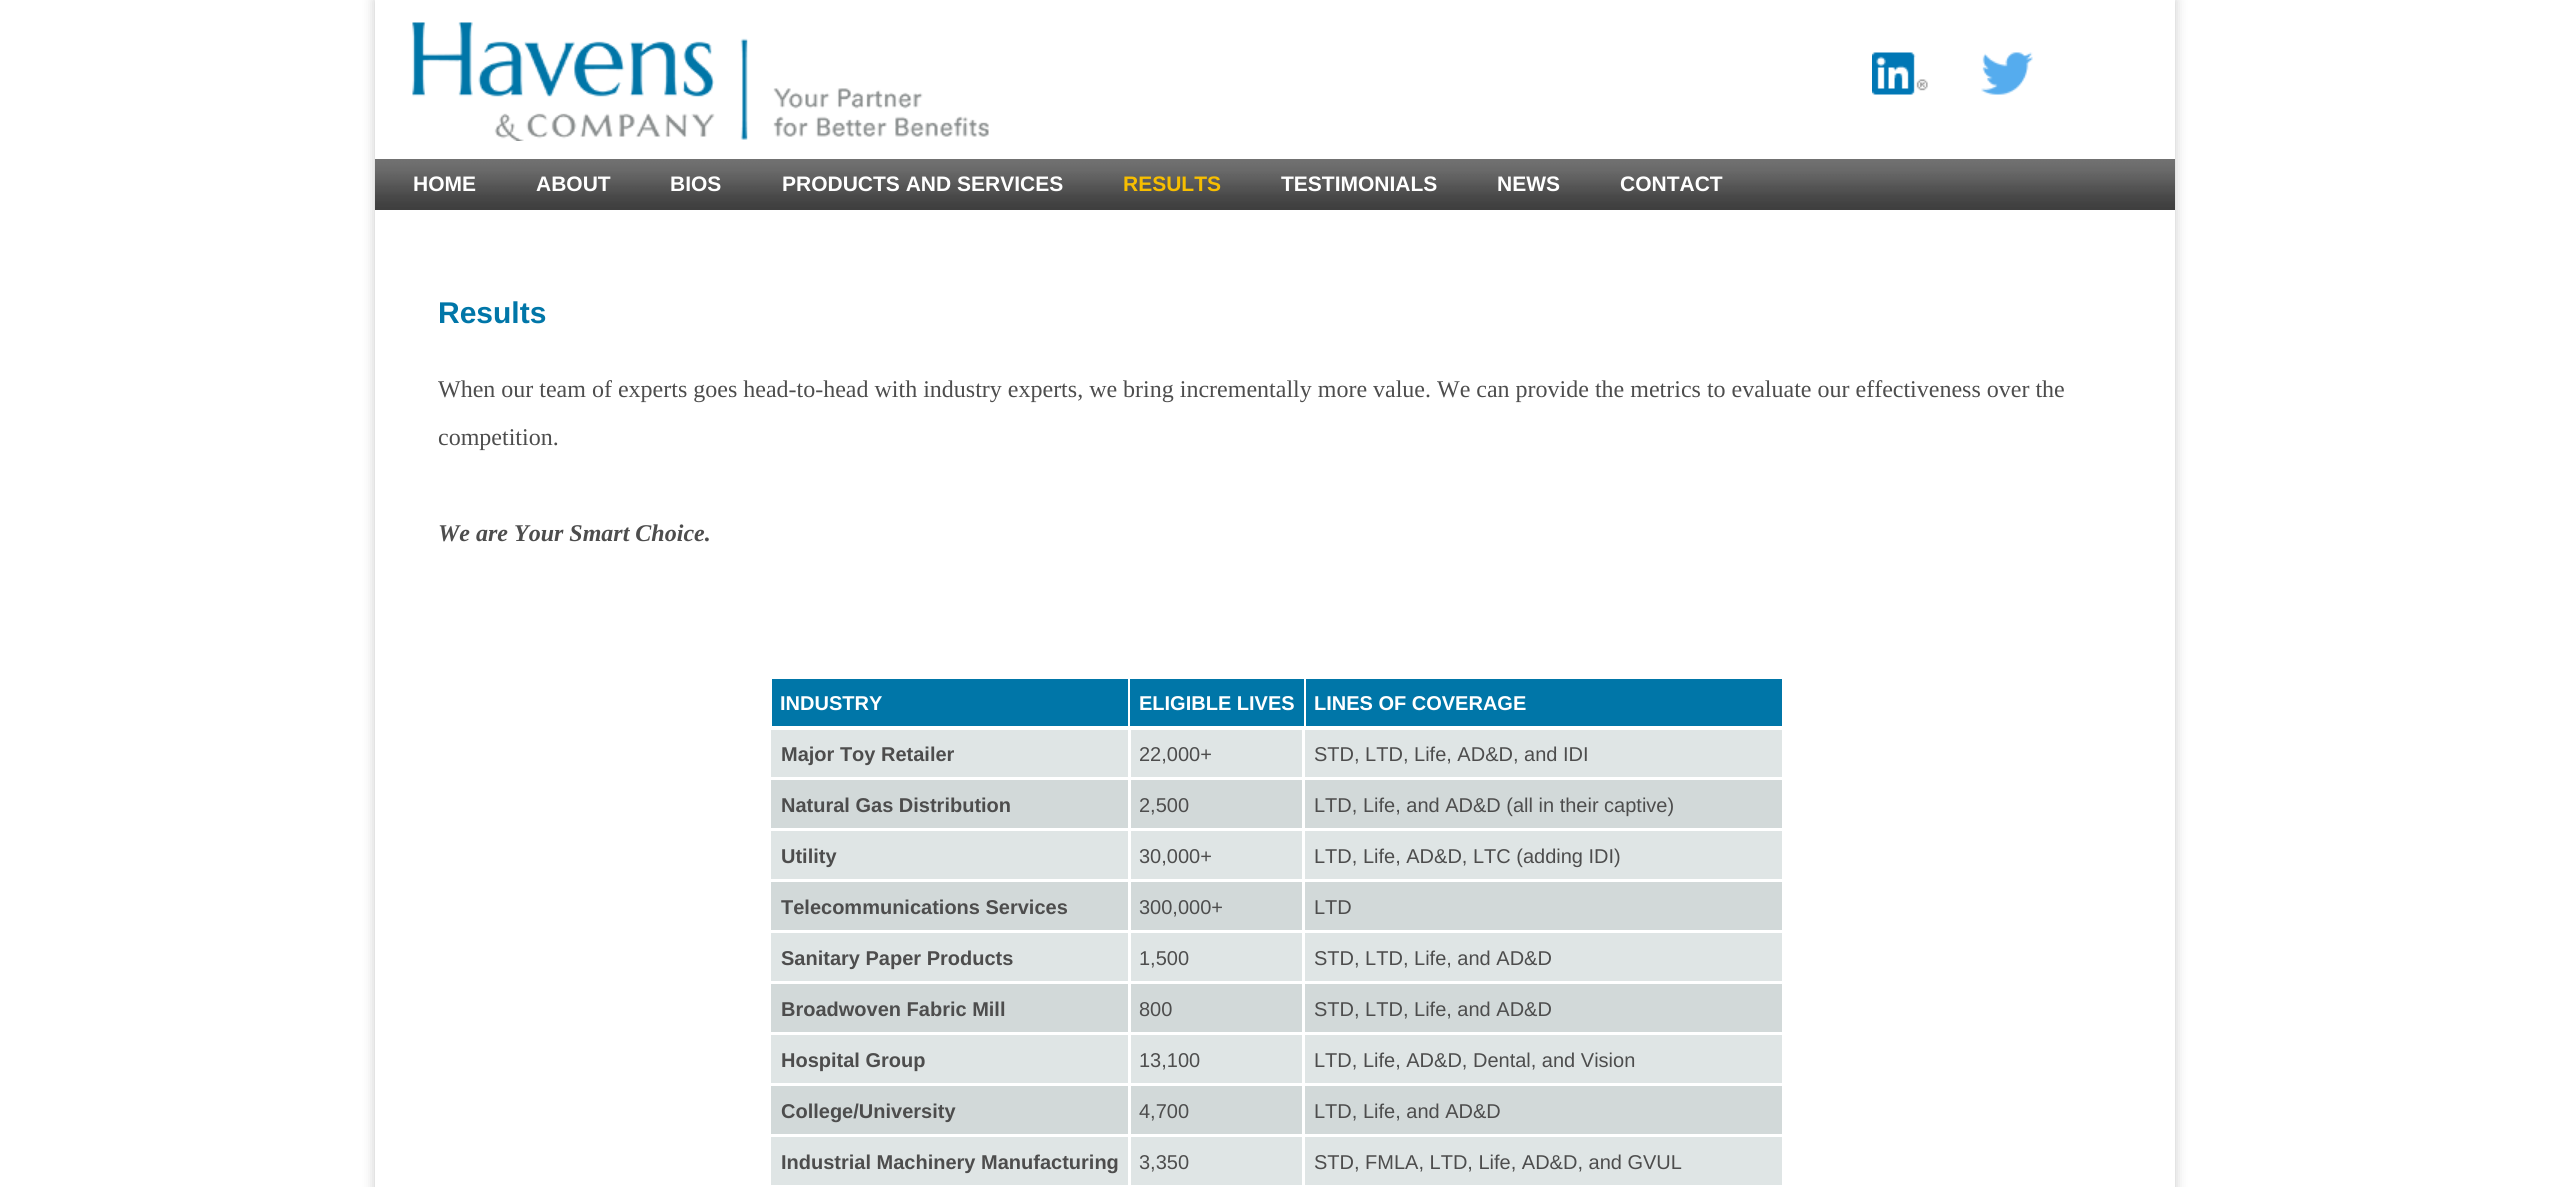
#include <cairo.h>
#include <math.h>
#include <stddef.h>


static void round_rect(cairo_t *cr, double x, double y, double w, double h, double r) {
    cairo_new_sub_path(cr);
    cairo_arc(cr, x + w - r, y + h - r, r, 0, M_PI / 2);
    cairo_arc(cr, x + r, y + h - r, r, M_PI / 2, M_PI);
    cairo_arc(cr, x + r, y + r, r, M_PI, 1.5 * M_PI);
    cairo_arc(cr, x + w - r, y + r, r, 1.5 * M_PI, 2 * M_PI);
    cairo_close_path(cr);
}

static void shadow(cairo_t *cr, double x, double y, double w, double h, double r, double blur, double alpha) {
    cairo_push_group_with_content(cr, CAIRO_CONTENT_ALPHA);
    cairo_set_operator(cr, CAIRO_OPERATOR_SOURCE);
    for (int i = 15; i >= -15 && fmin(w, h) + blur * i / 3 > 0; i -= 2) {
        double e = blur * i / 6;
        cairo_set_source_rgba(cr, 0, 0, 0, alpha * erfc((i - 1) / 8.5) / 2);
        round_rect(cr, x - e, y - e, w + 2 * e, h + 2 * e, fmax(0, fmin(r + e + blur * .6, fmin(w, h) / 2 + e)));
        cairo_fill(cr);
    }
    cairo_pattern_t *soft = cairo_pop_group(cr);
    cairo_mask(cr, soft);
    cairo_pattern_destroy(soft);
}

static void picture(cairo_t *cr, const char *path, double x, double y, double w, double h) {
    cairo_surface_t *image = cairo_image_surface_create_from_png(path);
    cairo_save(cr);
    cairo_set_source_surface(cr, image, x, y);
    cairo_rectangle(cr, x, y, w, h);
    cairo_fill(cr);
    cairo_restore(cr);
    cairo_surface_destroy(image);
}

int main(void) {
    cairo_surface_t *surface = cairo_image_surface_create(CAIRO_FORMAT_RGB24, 2549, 1187);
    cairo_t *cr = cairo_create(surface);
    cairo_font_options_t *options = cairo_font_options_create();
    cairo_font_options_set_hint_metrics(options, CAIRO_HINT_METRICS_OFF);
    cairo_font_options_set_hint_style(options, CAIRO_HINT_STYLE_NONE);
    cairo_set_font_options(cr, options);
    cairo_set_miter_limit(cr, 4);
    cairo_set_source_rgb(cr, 1, 1, 1);
    cairo_paint(cr);
    cairo_save(cr);
    cairo_set_fill_rule(cr, CAIRO_FILL_RULE_EVEN_ODD);
    cairo_new_path(cr);
    cairo_move_to(cr, 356, 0);
    cairo_line_to(cr, 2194, 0);
    cairo_line_to(cr, 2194, 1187);
    cairo_line_to(cr, 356, 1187);
    cairo_close_path(cr);
    cairo_move_to(cr, 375, 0);
    cairo_line_to(cr, 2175, 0);
    cairo_line_to(cr, 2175, 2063);
    cairo_line_to(cr, 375, 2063);
    cairo_close_path(cr);
    cairo_clip(cr);
    cairo_set_source_rgb(cr, 0.784, 0.784, 0.784);
    shadow(cr, 375, 0, 1800, 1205, 0, 6, 1);
    cairo_restore(cr);
    picture(cr, "img1.png", 412, 22, 577, 119);
    picture(cr, "img2.png", 1872, 52, 56, 43);
    picture(cr, "img3.png", 1981, 52, 52, 43);
    picture(cr, "img4.png", 375, 159, 1800, 51);
    cairo_select_font_face(cr, "Liberation Sans", CAIRO_FONT_SLANT_NORMAL, CAIRO_FONT_WEIGHT_BOLD);
    cairo_set_font_size(cr, 21);
    cairo_set_source_rgb(cr, 1, 1, 1);
    cairo_move_to(cr, 413, 191);
    cairo_show_text(cr, "HOME");
    cairo_move_to(cr, 536, 191);
    cairo_show_text(cr, "ABOUT");
    cairo_move_to(cr, 670, 191);
    cairo_show_text(cr, "BIOS");
    cairo_move_to(cr, 782, 191);
    cairo_show_text(cr, "PRODUCTS AND SERVICES");
    cairo_set_source_rgb(cr, 0.965, 0.745, 0);
    cairo_move_to(cr, 1123, 191);
    cairo_show_text(cr, "RESULTS");
    cairo_set_source_rgb(cr, 1, 1, 1);
    cairo_move_to(cr, 1281, 191);
    cairo_show_text(cr, "TESTIMONIALS");
    cairo_move_to(cr, 1497, 191);
    cairo_show_text(cr, "NEWS");
    cairo_move_to(cr, 1620, 191);
    cairo_show_text(cr, "CONTACT");
    cairo_set_font_size(cr, 30);
    cairo_set_source_rgb(cr, 0, 0.463, 0.659);
    cairo_move_to(cr, 438, 323);
    cairo_show_text(cr, "Results");
    cairo_select_font_face(cr, "Liberation Serif", CAIRO_FONT_SLANT_NORMAL, CAIRO_FONT_WEIGHT_NORMAL);
    cairo_set_font_size(cr, 24);
    cairo_set_source_rgb(cr, 0.302, 0.302, 0.302);
    cairo_move_to(cr, 438, 397);
    cairo_show_text(cr, "When our team of experts goes head-to-head with industry experts, we bring incrementally more value. We can provide the metrics to evaluate our effectiveness over the");
    cairo_move_to(cr, 438, 445);
    cairo_show_text(cr, "competition.");
    cairo_select_font_face(cr, "Liberation Serif", CAIRO_FONT_SLANT_ITALIC, CAIRO_FONT_WEIGHT_BOLD);
    cairo_move_to(cr, 438, 541);
    cairo_show_text(cr, "We are Your Smart Choice.");
    cairo_set_source_rgb(cr, 0, 0.463, 0.659);
    cairo_rectangle(cr, 772, 679, 356, 47);
    cairo_fill(cr);
    cairo_select_font_face(cr, "Liberation Sans", CAIRO_FONT_SLANT_NORMAL, CAIRO_FONT_WEIGHT_BOLD);
    cairo_set_font_size(cr, 20);
    cairo_set_source_rgb(cr, 1, 1, 1);
    cairo_move_to(cr, 780, 710);
    cairo_show_text(cr, "INDUSTRY");
    cairo_set_source_rgb(cr, 0, 0.463, 0.659);
    cairo_rectangle(cr, 1130, 679, 174, 47);
    cairo_fill(cr);
    cairo_set_source_rgb(cr, 1, 1, 1);
    cairo_move_to(cr, 1139, 710);
    cairo_show_text(cr, "ELIGIBLE LIVES");
    cairo_set_source_rgb(cr, 0, 0.463, 0.659);
    cairo_rectangle(cr, 1306, 679, 476, 47);
    cairo_fill(cr);
    cairo_set_source_rgb(cr, 1, 1, 1);
    cairo_move_to(cr, 1314, 710);
    cairo_show_text(cr, "LINES OF COVERAGE");
    cairo_set_source_rgb(cr, 0.875, 0.898, 0.898);
    cairo_rectangle(cr, 771, 730, 357, 47);
    cairo_fill(cr);
    cairo_set_source_rgb(cr, 0.302, 0.302, 0.302);
    cairo_move_to(cr, 781, 761);
    cairo_show_text(cr, "Major Toy Retailer");
    cairo_set_source_rgb(cr, 0.875, 0.898, 0.898);
    cairo_rectangle(cr, 1131, 730, 171, 47);
    cairo_fill(cr);
    cairo_select_font_face(cr, "Liberation Sans", CAIRO_FONT_SLANT_NORMAL, CAIRO_FONT_WEIGHT_NORMAL);
    cairo_set_source_rgb(cr, 0.302, 0.302, 0.302);
    cairo_move_to(cr, 1139, 761);
    cairo_show_text(cr, "22,000+");
    cairo_set_source_rgb(cr, 0.875, 0.898, 0.898);
    cairo_rectangle(cr, 1305, 730, 477, 47);
    cairo_fill(cr);
    cairo_set_source_rgb(cr, 0.302, 0.302, 0.302);
    cairo_move_to(cr, 1314, 761);
    cairo_show_text(cr, "STD, LTD, Life, AD&D, and IDI");
    cairo_set_source_rgb(cr, 0.824, 0.851, 0.851);
    cairo_rectangle(cr, 771, 780, 357, 48);
    cairo_fill(cr);
    cairo_select_font_face(cr, "Liberation Sans", CAIRO_FONT_SLANT_NORMAL, CAIRO_FONT_WEIGHT_BOLD);
    cairo_set_source_rgb(cr, 0.302, 0.302, 0.302);
    cairo_move_to(cr, 781, 812);
    cairo_show_text(cr, "Natural Gas Distribution");
    cairo_set_source_rgb(cr, 0.824, 0.851, 0.851);
    cairo_rectangle(cr, 1131, 780, 171, 48);
    cairo_fill(cr);
    cairo_select_font_face(cr, "Liberation Sans", CAIRO_FONT_SLANT_NORMAL, CAIRO_FONT_WEIGHT_NORMAL);
    cairo_set_source_rgb(cr, 0.302, 0.302, 0.302);
    cairo_move_to(cr, 1139, 812);
    cairo_show_text(cr, "2,500");
    cairo_set_source_rgb(cr, 0.824, 0.851, 0.851);
    cairo_rectangle(cr, 1305, 780, 477, 48);
    cairo_fill(cr);
    cairo_set_source_rgb(cr, 0.302, 0.302, 0.302);
    cairo_move_to(cr, 1314, 812);
    cairo_show_text(cr, "LTD, Life, and AD&D (all in their captive)");
    cairo_set_source_rgb(cr, 0.875, 0.898, 0.898);
    cairo_rectangle(cr, 771, 831, 357, 48);
    cairo_fill(cr);
    cairo_select_font_face(cr, "Liberation Sans", CAIRO_FONT_SLANT_NORMAL, CAIRO_FONT_WEIGHT_BOLD);
    cairo_set_source_rgb(cr, 0.302, 0.302, 0.302);
    cairo_move_to(cr, 781, 863);
    cairo_show_text(cr, "Utility");
    cairo_set_source_rgb(cr, 0.875, 0.898, 0.898);
    cairo_rectangle(cr, 1131, 831, 171, 48);
    cairo_fill(cr);
    cairo_select_font_face(cr, "Liberation Sans", CAIRO_FONT_SLANT_NORMAL, CAIRO_FONT_WEIGHT_NORMAL);
    cairo_set_source_rgb(cr, 0.302, 0.302, 0.302);
    cairo_move_to(cr, 1139, 863);
    cairo_show_text(cr, "30,000+");
    cairo_set_source_rgb(cr, 0.875, 0.898, 0.898);
    cairo_rectangle(cr, 1305, 831, 477, 48);
    cairo_fill(cr);
    cairo_set_source_rgb(cr, 0.302, 0.302, 0.302);
    cairo_move_to(cr, 1314, 863);
    cairo_show_text(cr, "LTD, Life, AD&D, LTC (adding IDI)");
    cairo_set_source_rgb(cr, 0.824, 0.851, 0.851);
    cairo_rectangle(cr, 771, 882, 357, 48);
    cairo_fill(cr);
    cairo_select_font_face(cr, "Liberation Sans", CAIRO_FONT_SLANT_NORMAL, CAIRO_FONT_WEIGHT_BOLD);
    cairo_set_source_rgb(cr, 0.302, 0.302, 0.302);
    cairo_move_to(cr, 781, 914);
    cairo_show_text(cr, "Telecommunications Services");
    cairo_set_source_rgb(cr, 0.824, 0.851, 0.851);
    cairo_rectangle(cr, 1131, 882, 171, 48);
    cairo_fill(cr);
    cairo_select_font_face(cr, "Liberation Sans", CAIRO_FONT_SLANT_NORMAL, CAIRO_FONT_WEIGHT_NORMAL);
    cairo_set_source_rgb(cr, 0.302, 0.302, 0.302);
    cairo_move_to(cr, 1139, 914);
    cairo_show_text(cr, "300,000+");
    cairo_set_source_rgb(cr, 0.824, 0.851, 0.851);
    cairo_rectangle(cr, 1305, 882, 477, 48);
    cairo_fill(cr);
    cairo_set_source_rgb(cr, 0.302, 0.302, 0.302);
    cairo_move_to(cr, 1314, 914);
    cairo_show_text(cr, "LTD");
    cairo_set_source_rgb(cr, 0.875, 0.898, 0.898);
    cairo_rectangle(cr, 771, 933, 357, 48);
    cairo_fill(cr);
    cairo_select_font_face(cr, "Liberation Sans", CAIRO_FONT_SLANT_NORMAL, CAIRO_FONT_WEIGHT_BOLD);
    cairo_set_source_rgb(cr, 0.302, 0.302, 0.302);
    cairo_move_to(cr, 781, 965);
    cairo_show_text(cr, "Sanitary Paper Products");
    cairo_set_source_rgb(cr, 0.875, 0.898, 0.898);
    cairo_rectangle(cr, 1131, 933, 171, 48);
    cairo_fill(cr);
    cairo_select_font_face(cr, "Liberation Sans", CAIRO_FONT_SLANT_NORMAL, CAIRO_FONT_WEIGHT_NORMAL);
    cairo_set_source_rgb(cr, 0.302, 0.302, 0.302);
    cairo_move_to(cr, 1139, 965);
    cairo_show_text(cr, "1,500");
    cairo_set_source_rgb(cr, 0.875, 0.898, 0.898);
    cairo_rectangle(cr, 1305, 933, 477, 48);
    cairo_fill(cr);
    cairo_set_source_rgb(cr, 0.302, 0.302, 0.302);
    cairo_move_to(cr, 1314, 965);
    cairo_show_text(cr, "STD, LTD, Life, and AD&D");
    cairo_set_source_rgb(cr, 0.824, 0.851, 0.851);
    cairo_rectangle(cr, 771, 984, 357, 48);
    cairo_fill(cr);
    cairo_select_font_face(cr, "Liberation Sans", CAIRO_FONT_SLANT_NORMAL, CAIRO_FONT_WEIGHT_BOLD);
    cairo_set_source_rgb(cr, 0.302, 0.302, 0.302);
    cairo_move_to(cr, 781, 1016);
    cairo_show_text(cr, "Broadwoven Fabric Mill");
    cairo_set_source_rgb(cr, 0.824, 0.851, 0.851);
    cairo_rectangle(cr, 1131, 984, 171, 48);
    cairo_fill(cr);
    cairo_select_font_face(cr, "Liberation Sans", CAIRO_FONT_SLANT_NORMAL, CAIRO_FONT_WEIGHT_NORMAL);
    cairo_set_source_rgb(cr, 0.302, 0.302, 0.302);
    cairo_move_to(cr, 1139, 1016);
    cairo_show_text(cr, "800");
    cairo_set_source_rgb(cr, 0.824, 0.851, 0.851);
    cairo_rectangle(cr, 1305, 984, 477, 48);
    cairo_fill(cr);
    cairo_set_source_rgb(cr, 0.302, 0.302, 0.302);
    cairo_move_to(cr, 1314, 1016);
    cairo_show_text(cr, "STD, LTD, Life, and AD&D");
    cairo_set_source_rgb(cr, 0.875, 0.898, 0.898);
    cairo_rectangle(cr, 771, 1035, 357, 48);
    cairo_fill(cr);
    cairo_select_font_face(cr, "Liberation Sans", CAIRO_FONT_SLANT_NORMAL, CAIRO_FONT_WEIGHT_BOLD);
    cairo_set_source_rgb(cr, 0.302, 0.302, 0.302);
    cairo_move_to(cr, 781, 1067);
    cairo_show_text(cr, "Hospital Group");
    cairo_set_source_rgb(cr, 0.875, 0.898, 0.898);
    cairo_rectangle(cr, 1131, 1035, 171, 48);
    cairo_fill(cr);
    cairo_select_font_face(cr, "Liberation Sans", CAIRO_FONT_SLANT_NORMAL, CAIRO_FONT_WEIGHT_NORMAL);
    cairo_set_source_rgb(cr, 0.302, 0.302, 0.302);
    cairo_move_to(cr, 1139, 1067);
    cairo_show_text(cr, "13,100");
    cairo_set_source_rgb(cr, 0.875, 0.898, 0.898);
    cairo_rectangle(cr, 1305, 1035, 477, 48);
    cairo_fill(cr);
    cairo_set_source_rgb(cr, 0.302, 0.302, 0.302);
    cairo_move_to(cr, 1314, 1067);
    cairo_show_text(cr, "LTD, Life, AD&D, Dental, and Vision");
    cairo_set_source_rgb(cr, 0.824, 0.851, 0.851);
    cairo_rectangle(cr, 771, 1086, 357, 48);
    cairo_fill(cr);
    cairo_select_font_face(cr, "Liberation Sans", CAIRO_FONT_SLANT_NORMAL, CAIRO_FONT_WEIGHT_BOLD);
    cairo_set_source_rgb(cr, 0.302, 0.302, 0.302);
    cairo_move_to(cr, 781, 1118);
    cairo_show_text(cr, "College/University");
    cairo_set_source_rgb(cr, 0.824, 0.851, 0.851);
    cairo_rectangle(cr, 1131, 1086, 171, 48);
    cairo_fill(cr);
    cairo_select_font_face(cr, "Liberation Sans", CAIRO_FONT_SLANT_NORMAL, CAIRO_FONT_WEIGHT_NORMAL);
    cairo_set_source_rgb(cr, 0.302, 0.302, 0.302);
    cairo_move_to(cr, 1139, 1118);
    cairo_show_text(cr, "4,700");
    cairo_set_source_rgb(cr, 0.824, 0.851, 0.851);
    cairo_rectangle(cr, 1305, 1086, 477, 48);
    cairo_fill(cr);
    cairo_set_source_rgb(cr, 0.302, 0.302, 0.302);
    cairo_move_to(cr, 1314, 1118);
    cairo_show_text(cr, "LTD, Life, and AD&D");
    cairo_set_source_rgb(cr, 0.875, 0.898, 0.898);
    cairo_rectangle(cr, 771, 1137, 357, 48);
    cairo_fill(cr);
    cairo_select_font_face(cr, "Liberation Sans", CAIRO_FONT_SLANT_NORMAL, CAIRO_FONT_WEIGHT_BOLD);
    cairo_set_source_rgb(cr, 0.302, 0.302, 0.302);
    cairo_move_to(cr, 781, 1169);
    cairo_show_text(cr, "Industrial Machinery Manufacturing");
    cairo_set_source_rgb(cr, 0.875, 0.898, 0.898);
    cairo_rectangle(cr, 1131, 1137, 171, 48);
    cairo_fill(cr);
    cairo_select_font_face(cr, "Liberation Sans", CAIRO_FONT_SLANT_NORMAL, CAIRO_FONT_WEIGHT_NORMAL);
    cairo_set_source_rgb(cr, 0.302, 0.302, 0.302);
    cairo_move_to(cr, 1139, 1169);
    cairo_show_text(cr, "3,350");
    cairo_set_source_rgb(cr, 0.875, 0.898, 0.898);
    cairo_rectangle(cr, 1305, 1137, 477, 48);
    cairo_fill(cr);
    cairo_set_source_rgb(cr, 0.302, 0.302, 0.302);
    cairo_move_to(cr, 1314, 1169);
    cairo_show_text(cr, "STD, FMLA, LTD, Life, AD&D, and GVUL");
    cairo_surface_write_to_png(surface, "page.png");
    cairo_font_options_destroy(options);
    cairo_destroy(cr);
    cairo_surface_destroy(surface);
    return 0;
}
